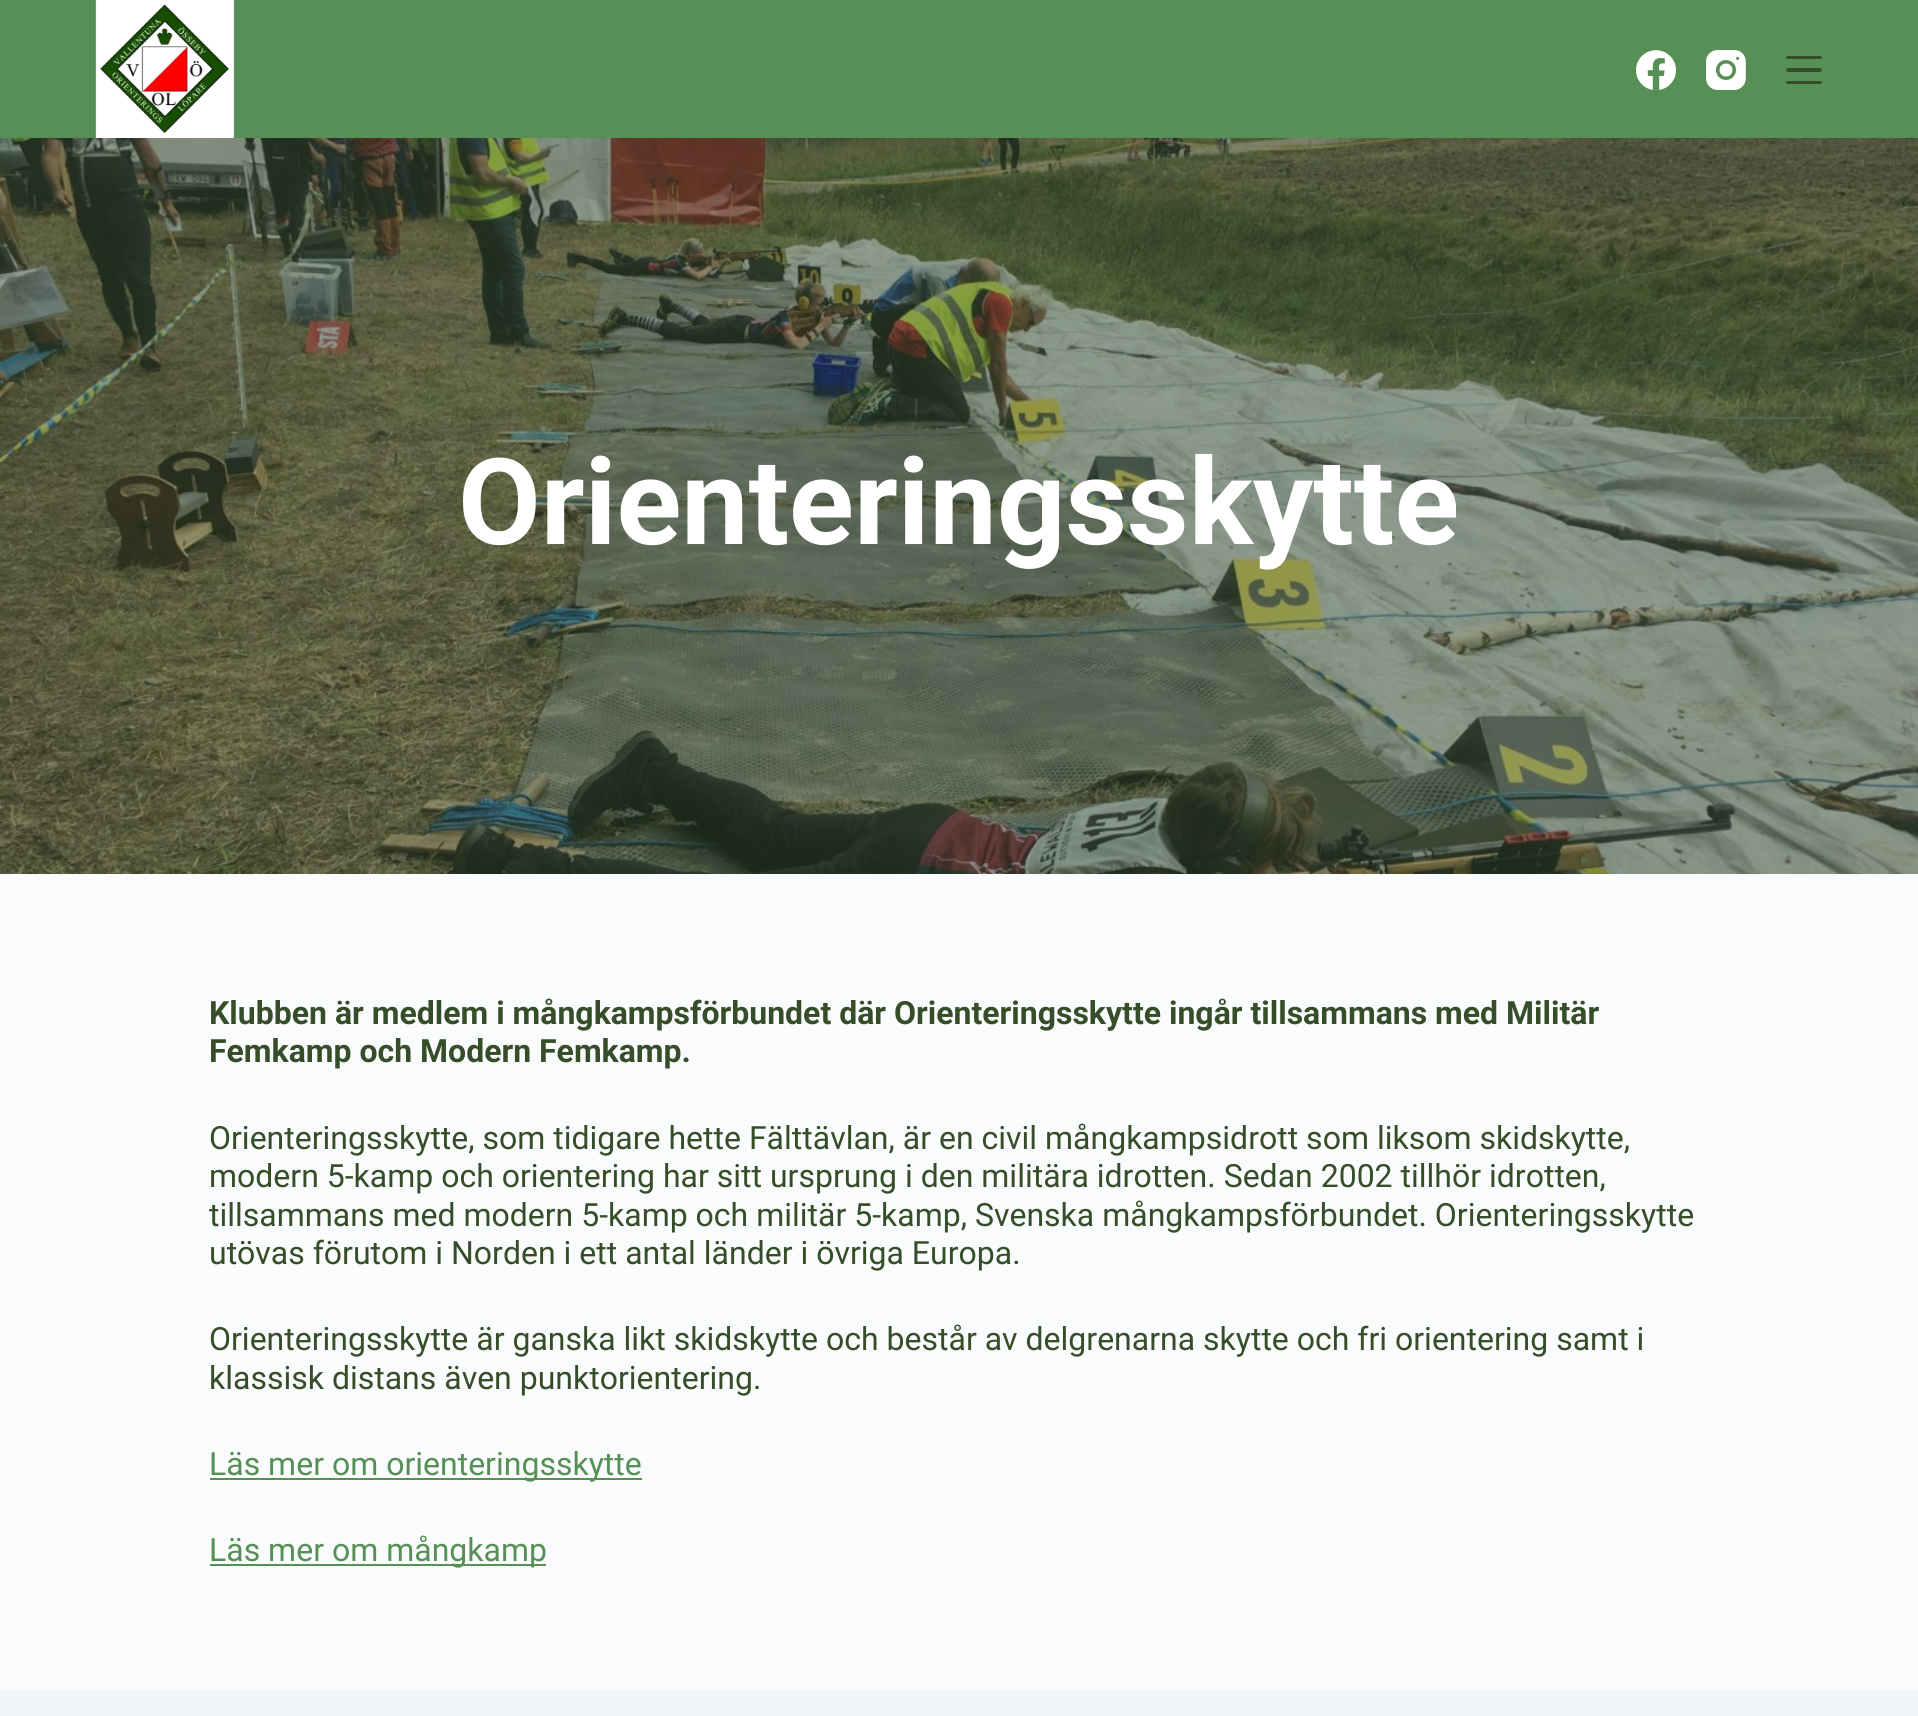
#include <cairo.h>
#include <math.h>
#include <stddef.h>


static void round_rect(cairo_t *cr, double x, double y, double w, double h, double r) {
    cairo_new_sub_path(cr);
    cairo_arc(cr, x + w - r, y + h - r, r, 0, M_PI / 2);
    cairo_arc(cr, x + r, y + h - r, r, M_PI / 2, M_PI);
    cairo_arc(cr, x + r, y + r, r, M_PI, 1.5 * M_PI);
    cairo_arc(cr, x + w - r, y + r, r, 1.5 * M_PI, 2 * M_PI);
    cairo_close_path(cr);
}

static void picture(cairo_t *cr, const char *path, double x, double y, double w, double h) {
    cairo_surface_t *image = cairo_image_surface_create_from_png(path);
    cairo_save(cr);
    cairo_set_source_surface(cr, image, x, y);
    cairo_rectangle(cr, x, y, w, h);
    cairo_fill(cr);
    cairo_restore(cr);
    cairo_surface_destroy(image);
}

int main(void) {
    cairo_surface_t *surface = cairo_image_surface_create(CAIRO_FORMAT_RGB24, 1918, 1716);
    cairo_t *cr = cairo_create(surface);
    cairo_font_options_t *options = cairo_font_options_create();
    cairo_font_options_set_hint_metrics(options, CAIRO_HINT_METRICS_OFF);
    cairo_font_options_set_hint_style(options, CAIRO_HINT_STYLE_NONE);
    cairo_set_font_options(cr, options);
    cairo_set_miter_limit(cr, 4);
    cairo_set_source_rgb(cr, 0.98, 0.984, 0.988);
    cairo_paint(cr);
    cairo_set_source_rgb(cr, 0.341, 0.565, 0.341);
    cairo_rectangle(cr, 0, 0, 1918, 138);
    cairo_fill(cr);
    picture(cr, "img1.png", 95, 0, 140, 138);
    picture(cr, "img2.png", 1636, 50, 40, 40);
    picture(cr, "img3.png", 1706, 50, 40, 40);
    cairo_set_source_rgb(cr, 0.208, 0.306, 0.161);
    round_rect(cr, 1786, 56, 36, 3, 1.5);
    cairo_fill(cr);
    round_rect(cr, 1786, 68, 36, 4, 2);
    cairo_fill(cr);
    round_rect(cr, 1786, 81, 36, 3, 1.5);
    cairo_fill(cr);
    picture(cr, "img4.png", 0, 138, 1918, 736);
    cairo_select_font_face(cr, "Roboto", CAIRO_FONT_SLANT_NORMAL, CAIRO_FONT_WEIGHT_BOLD);
    cairo_set_font_size(cr, 120);
    cairo_set_source_rgb(cr, 1, 1, 1);
    cairo_move_to(cr, 458, 544);
    cairo_show_text(cr, "Orienteringsskytte");
    cairo_set_font_size(cr, 32);
    cairo_set_source_rgb(cr, 0.208, 0.306, 0.161);
    cairo_move_to(cr, 209, 1024);
    cairo_show_text(cr, "Klubben är medlem i mångkampsförbundet där Orienteringsskytte ingår tillsammans med Militär");
    cairo_move_to(cr, 209, 1062);
    cairo_show_text(cr, "Femkamp och Modern Femkamp.");
    cairo_select_font_face(cr, "Roboto", CAIRO_FONT_SLANT_NORMAL, CAIRO_FONT_WEIGHT_NORMAL);
    cairo_move_to(cr, 209, 1149);
    cairo_show_text(cr, "Orienteringsskytte, som tidigare hette Fälttävlan, är en civil mångkampsidrott som liksom skidskytte,");
    cairo_move_to(cr, 209, 1187);
    cairo_show_text(cr, "modern 5-kamp och orientering har sitt ursprung i den militära idrotten. Sedan 2002 tillhör idrotten,");
    cairo_move_to(cr, 209, 1226);
    cairo_show_text(cr, "tillsammans med modern 5-kamp och militär 5-kamp, Svenska mångkampsförbundet. Orienteringsskytte");
    cairo_move_to(cr, 209, 1264);
    cairo_show_text(cr, "utövas förutom i Norden i ett antal länder i övriga Europa.");
    cairo_move_to(cr, 209, 1350);
    cairo_show_text(cr, "Orienteringsskytte är ganska likt skidskytte och består av delgrenarna skytte och fri orientering samt i");
    cairo_move_to(cr, 209, 1389);
    cairo_show_text(cr, "klassisk distans även punktorientering.");
    cairo_set_source_rgb(cr, 0.341, 0.565, 0.341);
    cairo_rectangle(cr, 210, 1478, 432, 2);
    cairo_fill(cr);
    cairo_move_to(cr, 209, 1475);
    cairo_show_text(cr, "Läs mer om orienteringsskytte");
    cairo_rectangle(cr, 210, 1564, 336, 2);
    cairo_fill(cr);
    cairo_move_to(cr, 209, 1561);
    cairo_show_text(cr, "Läs mer om mångkamp");
    cairo_set_source_rgb(cr, 0.949, 0.961, 0.969);
    cairo_rectangle(cr, 0, 1690, 1918, 26);
    cairo_fill(cr);
    cairo_surface_write_to_png(surface, "page.png");
    cairo_font_options_destroy(options);
    cairo_destroy(cr);
    cairo_surface_destroy(surface);
    return 0;
}
